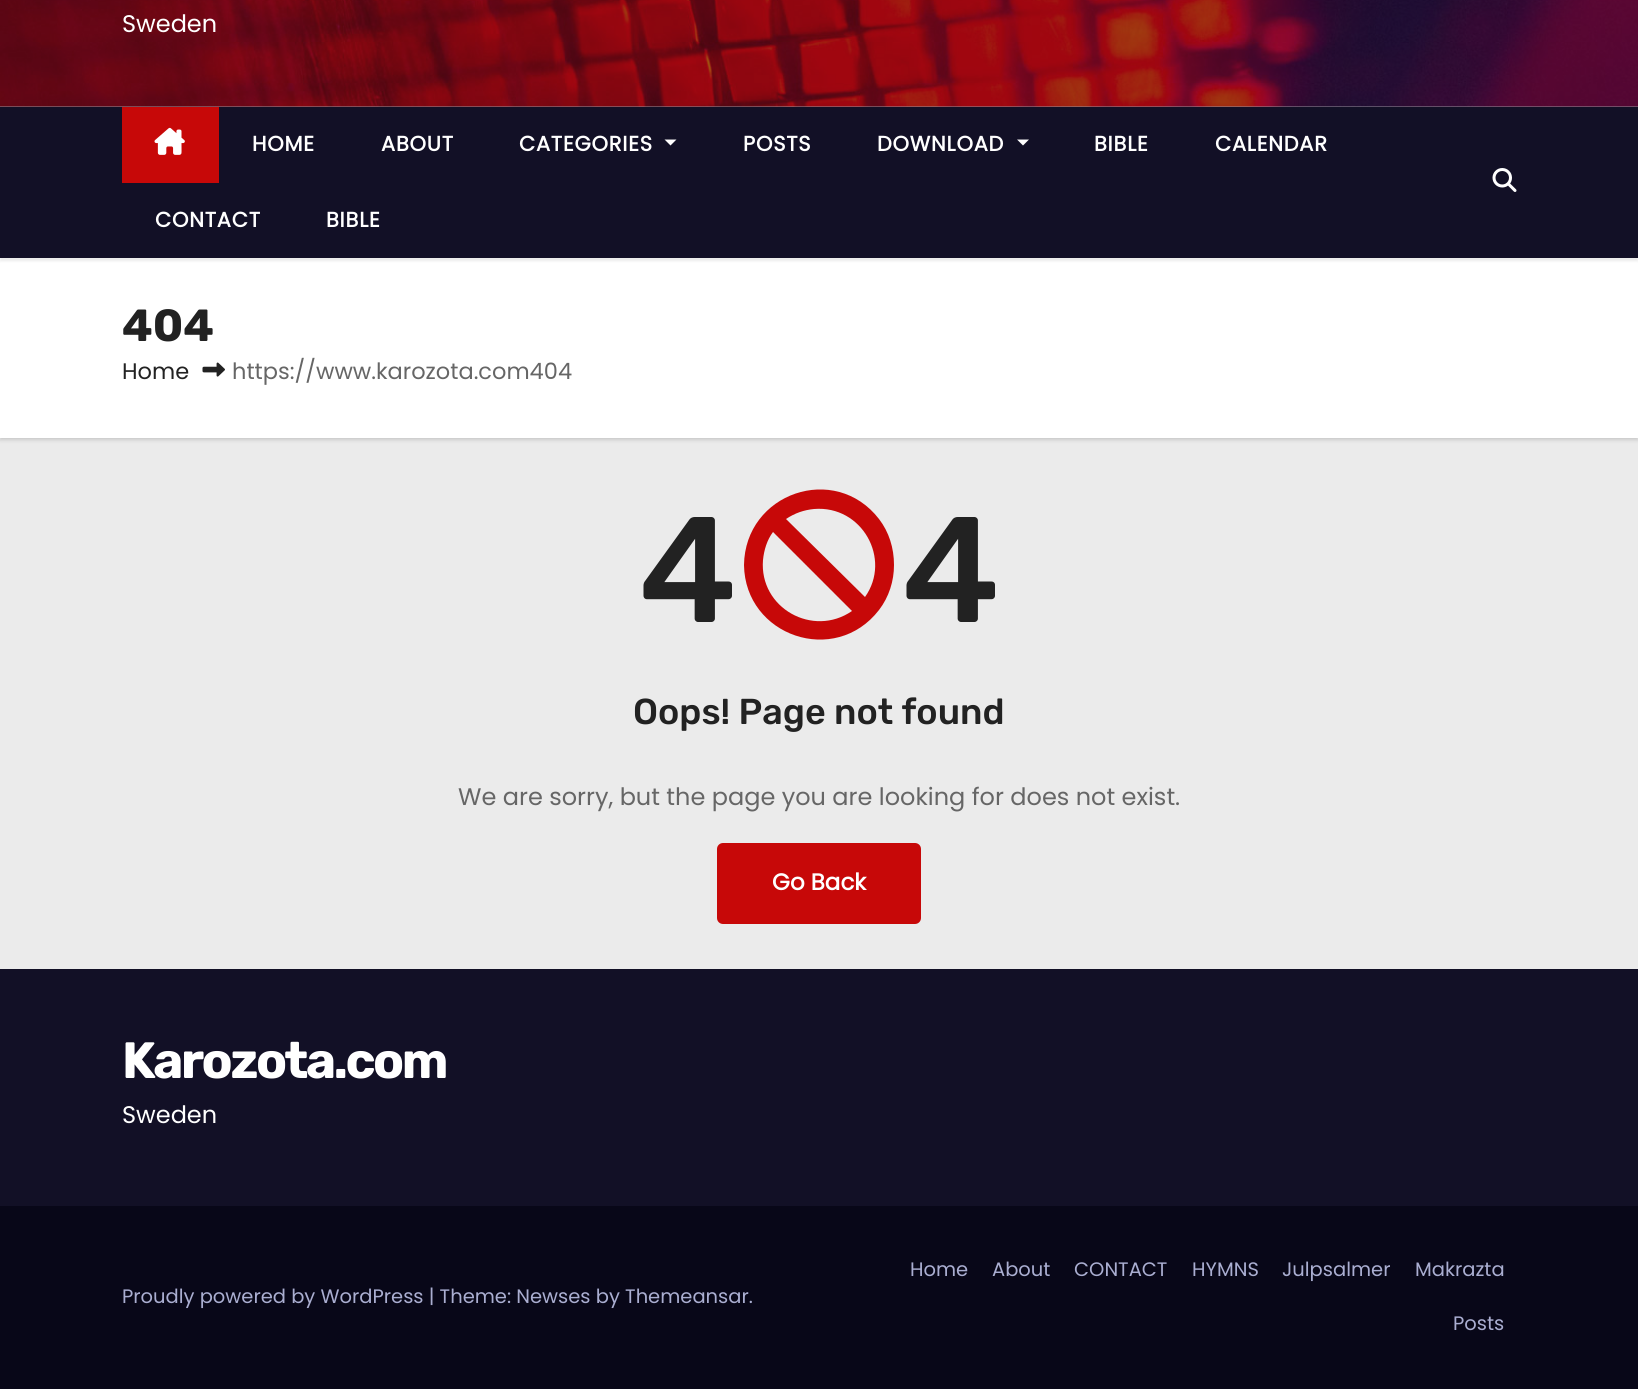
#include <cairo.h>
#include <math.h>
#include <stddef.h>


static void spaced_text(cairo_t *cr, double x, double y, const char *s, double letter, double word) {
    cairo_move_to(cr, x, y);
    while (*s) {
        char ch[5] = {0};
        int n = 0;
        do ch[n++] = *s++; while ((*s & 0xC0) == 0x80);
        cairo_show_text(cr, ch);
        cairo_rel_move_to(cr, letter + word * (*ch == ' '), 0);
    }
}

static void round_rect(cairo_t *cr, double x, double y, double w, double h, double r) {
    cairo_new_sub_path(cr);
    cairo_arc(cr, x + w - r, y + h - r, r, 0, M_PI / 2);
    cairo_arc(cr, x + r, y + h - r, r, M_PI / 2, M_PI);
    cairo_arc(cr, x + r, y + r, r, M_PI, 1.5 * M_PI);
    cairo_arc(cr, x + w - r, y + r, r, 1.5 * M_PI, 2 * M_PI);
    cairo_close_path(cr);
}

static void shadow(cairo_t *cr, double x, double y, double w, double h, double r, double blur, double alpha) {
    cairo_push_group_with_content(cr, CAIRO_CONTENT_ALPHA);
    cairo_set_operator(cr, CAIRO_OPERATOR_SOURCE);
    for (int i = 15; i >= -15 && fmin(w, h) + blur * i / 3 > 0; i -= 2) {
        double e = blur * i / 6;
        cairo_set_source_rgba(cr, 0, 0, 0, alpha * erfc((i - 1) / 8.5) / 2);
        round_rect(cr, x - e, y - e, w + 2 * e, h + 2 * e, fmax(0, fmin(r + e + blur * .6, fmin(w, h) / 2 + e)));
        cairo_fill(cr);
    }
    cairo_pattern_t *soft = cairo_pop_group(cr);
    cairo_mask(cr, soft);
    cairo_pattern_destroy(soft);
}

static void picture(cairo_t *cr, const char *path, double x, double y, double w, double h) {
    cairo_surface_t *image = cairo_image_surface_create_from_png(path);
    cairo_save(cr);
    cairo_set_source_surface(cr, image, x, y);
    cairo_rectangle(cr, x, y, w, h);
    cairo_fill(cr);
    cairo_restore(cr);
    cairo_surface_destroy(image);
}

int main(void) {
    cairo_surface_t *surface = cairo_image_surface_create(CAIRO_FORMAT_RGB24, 1638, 1389);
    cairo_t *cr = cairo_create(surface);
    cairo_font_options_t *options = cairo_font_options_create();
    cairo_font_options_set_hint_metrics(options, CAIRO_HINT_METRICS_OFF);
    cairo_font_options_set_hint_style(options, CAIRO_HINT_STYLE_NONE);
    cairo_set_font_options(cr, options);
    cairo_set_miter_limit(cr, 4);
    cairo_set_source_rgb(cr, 0.918, 0.918, 0.918);
    cairo_paint(cr);
    cairo_set_source_rgb(cr, 0.58, 0.576, 0.612);
    cairo_rectangle(cr, 0, 106, 1638, 1);
    cairo_fill(cr);
    picture(cr, "img1.png", 0, 0, 1638, 107);
    cairo_select_font_face(cr, "Poppins", CAIRO_FONT_SLANT_NORMAL, CAIRO_FONT_WEIGHT_NORMAL);
    cairo_set_font_size(cr, 24);
    cairo_set_source_rgb(cr, 1, 1, 1);
    cairo_move_to(cr, 122, 32);
    cairo_show_text(cr, "Sweden");
    cairo_set_source_rgb(cr, 0, 0, 0);
    shadow(cr, 0, 260, 1638, 180, 0, 2, 0.15);
    cairo_set_source_rgb(cr, 1, 1, 1);
    cairo_rectangle(cr, 0, 258, 1638, 180);
    cairo_fill(cr);
    cairo_set_source_rgb(cr, 0, 0, 0);
    shadow(cr, 0, 110, 1638, 151, 0, 1.5, 0.08);
    cairo_set_source_rgb(cr, 0.071, 0.063, 0.149);
    cairo_rectangle(cr, 0, 107, 1638, 151);
    cairo_fill(cr);
    cairo_set_source_rgb(cr, 0.78, 0.035, 0.035);
    cairo_rectangle(cr, 122, 107, 97, 76);
    cairo_fill(cr);
    picture(cr, "img2.png", 154, 127, 31, 28);
    cairo_select_font_face(cr, "Poppins", CAIRO_FONT_SLANT_NORMAL, CAIRO_FONT_WEIGHT_BOLD);
    cairo_set_font_size(cr, 21);
    cairo_set_source_rgb(cr, 1, 1, 1);
    spaced_text(cr, 252, 151, "HOME", 0.75, 0);
    spaced_text(cr, 381, 151, "ABOUT", 0.75, 0);
    spaced_text(cr, 519, 151, "CATEGORIES", 0.75, 0);
    cairo_new_path(cr);
    cairo_move_to(cr, 664.5, 139.5);
    cairo_line_to(cr, 676.5, 139.5);
    cairo_line_to(cr, 670.5, 145.5);
    cairo_close_path(cr);
    cairo_fill(cr);
    spaced_text(cr, 743, 151, "POSTS", 0.75, 0);
    spaced_text(cr, 877, 151, "DOWNLOAD", 0.75, 0);
    cairo_new_path(cr);
    cairo_move_to(cr, 1017, 139.5);
    cairo_line_to(cr, 1029, 139.5);
    cairo_line_to(cr, 1023, 145.5);
    cairo_close_path(cr);
    cairo_fill(cr);
    spaced_text(cr, 1094, 151, "BIBLE", 0.75, 0);
    spaced_text(cr, 1215, 151, "CALENDAR", 0.75, 0);
    spaced_text(cr, 155, 227, "CONTACT", 0.75, 0);
    spaced_text(cr, 326, 227, "BIBLE", 0.75, 0);
    picture(cr, "img3.png", 1492, 168, 25, 24);
    cairo_select_font_face(cr, "Rubik", CAIRO_FONT_SLANT_NORMAL, CAIRO_FONT_WEIGHT_BOLD);
    cairo_set_font_size(cr, 45);
    cairo_set_source_rgb(cr, 0.133, 0.133, 0.133);
    cairo_move_to(cr, 122, 341);
    cairo_show_text(cr, "404");
    cairo_select_font_face(cr, "Poppins", CAIRO_FONT_SLANT_NORMAL, CAIRO_FONT_WEIGHT_NORMAL);
    cairo_set_font_size(cr, 22.5);
    cairo_move_to(cr, 122, 379);
    cairo_show_text(cr, "Home");
    picture(cr, "img4.png", 202, 362, 23, 15);
    cairo_set_source_rgb(cr, 0.4, 0.4, 0.4);
    cairo_move_to(cr, 232, 379);
    cairo_show_text(cr, "https://www.karozota.com404");
    cairo_select_font_face(cr, "Rubik Medium", CAIRO_FONT_SLANT_NORMAL, CAIRO_FONT_WEIGHT_NORMAL);
    cairo_set_font_size(cr, 150);
    cairo_set_source_rgb(cr, 0.133, 0.133, 0.133);
    cairo_move_to(cr, 639, 622);
    cairo_show_text(cr, "4");
    cairo_set_source_rgb(cr, 0.78, 0.035, 0.035);
    cairo_new_path(cr);
    cairo_move_to(cr, 852, 611);
    cairo_line_to(cr, 773, 532);
    cairo_curve_to(cr, 767, 540, 764, 550, 763, 560);
    cairo_curve_to(cr, 759, 608, 813, 638, 852, 611);
    cairo_close_path(cr);
    cairo_move_to(cr, 865, 597);
    cairo_curve_to(cr, 892, 559, 862, 505, 814, 509);
    cairo_curve_to(cr, 804, 510, 795, 513, 786, 519);
    cairo_close_path(cr);
    cairo_move_to(cr, 744, 565);
    cairo_curve_to(cr, 745, 493, 835, 462, 879, 519);
    cairo_curve_to(cr, 889, 532, 894, 548, 894, 565);
    cairo_curve_to(cr, 894, 581, 889, 597, 879, 610);
    cairo_curve_to(cr, 835, 667, 745, 636, 744, 565);
    cairo_close_path(cr);
    cairo_fill(cr);
    cairo_set_source_rgb(cr, 0.133, 0.133, 0.133);
    cairo_move_to(cr, 902, 622);
    cairo_show_text(cr, "4");
    cairo_set_font_size(cr, 36);
    cairo_move_to(cr, 633, 724);
    cairo_show_text(cr, "Oops! Page not found");
    cairo_select_font_face(cr, "Poppins", CAIRO_FONT_SLANT_NORMAL, CAIRO_FONT_WEIGHT_NORMAL);
    cairo_set_font_size(cr, 24);
    cairo_set_source_rgb(cr, 0.4, 0.4, 0.4);
    cairo_move_to(cr, 458, 805);
    cairo_show_text(cr, "We are sorry, but the page you are looking for does not exist.");
    cairo_set_source_rgb(cr, 0.78, 0.035, 0.035);
    round_rect(cr, 718.5, 844.5, 201, 78, 4.5);
    cairo_fill_preserve(cr);
    cairo_set_line_width(cr, 3);
    cairo_stroke(cr);
    cairo_select_font_face(cr, "Poppins", CAIRO_FONT_SLANT_NORMAL, CAIRO_FONT_WEIGHT_BOLD);
    cairo_set_font_size(cr, 23);
    cairo_set_source_rgb(cr, 1, 1, 1);
    cairo_move_to(cr, 772, 890);
    cairo_show_text(cr, "Go Back");
    cairo_set_source_rgb(cr, 0.071, 0.063, 0.149);
    cairo_rectangle(cr, 0, 969, 1638, 237);
    cairo_fill(cr);
    cairo_select_font_face(cr, "Rubik", CAIRO_FONT_SLANT_NORMAL, CAIRO_FONT_WEIGHT_BOLD);
    cairo_set_font_size(cr, 51);
    cairo_set_source_rgb(cr, 1, 1, 1);
    spaced_text(cr, 122, 1078, "Karozota.com", -2.5, 0);
    cairo_select_font_face(cr, "Poppins", CAIRO_FONT_SLANT_NORMAL, CAIRO_FONT_WEIGHT_NORMAL);
    cairo_set_font_size(cr, 24);
    cairo_move_to(cr, 122, 1123);
    cairo_show_text(cr, "Sweden");
    cairo_set_source_rgb(cr, 0.035, 0.031, 0.094);
    cairo_rectangle(cr, 0, 1206, 1638, 183);
    cairo_fill(cr);
    cairo_set_font_size(cr, 19.5);
    cairo_set_source_rgb(cr, 0.667, 0.682, 0.82);
    cairo_move_to(cr, 122, 1303);
    cairo_show_text(cr, "Proudly powered by WordPress | Theme: Newses by Themeansar.");
    cairo_move_to(cr, 910, 1276);
    cairo_show_text(cr, "Home");
    cairo_move_to(cr, 992, 1276);
    cairo_show_text(cr, "About");
    cairo_move_to(cr, 1074, 1276);
    cairo_show_text(cr, "CONTACT");
    cairo_move_to(cr, 1192, 1276);
    cairo_show_text(cr, "HYMNS");
    cairo_move_to(cr, 1282, 1276);
    cairo_show_text(cr, "Julpsalmer");
    cairo_move_to(cr, 1415, 1276);
    cairo_show_text(cr, "Makrazta");
    cairo_move_to(cr, 1453, 1330);
    cairo_show_text(cr, "Posts");
    cairo_surface_write_to_png(surface, "page.png");
    cairo_font_options_destroy(options);
    cairo_destroy(cr);
    cairo_surface_destroy(surface);
    return 0;
}
